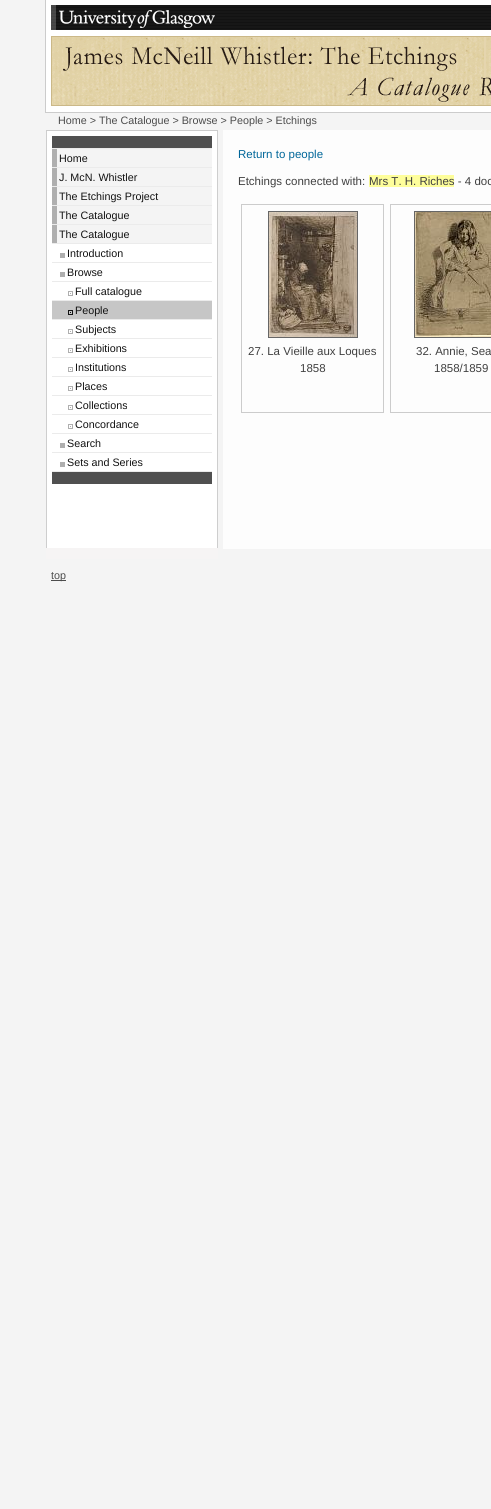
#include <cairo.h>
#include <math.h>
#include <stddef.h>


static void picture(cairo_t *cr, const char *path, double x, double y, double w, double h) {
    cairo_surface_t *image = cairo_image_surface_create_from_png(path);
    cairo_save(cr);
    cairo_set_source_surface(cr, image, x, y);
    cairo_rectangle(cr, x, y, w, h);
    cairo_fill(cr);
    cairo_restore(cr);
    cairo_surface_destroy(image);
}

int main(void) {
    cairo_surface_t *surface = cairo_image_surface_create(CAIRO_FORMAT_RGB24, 491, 1509);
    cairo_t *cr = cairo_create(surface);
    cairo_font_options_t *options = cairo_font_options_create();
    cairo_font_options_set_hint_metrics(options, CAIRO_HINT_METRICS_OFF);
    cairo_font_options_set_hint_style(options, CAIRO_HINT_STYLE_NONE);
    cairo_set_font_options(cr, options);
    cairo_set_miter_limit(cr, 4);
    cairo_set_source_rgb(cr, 0.957, 0.957, 0.957);
    cairo_paint(cr);
    cairo_set_source_rgb(cr, 1, 1, 1);
    cairo_rectangle(cr, 46, 0, 445, 112);
    cairo_fill(cr);
    cairo_set_source_rgb(cr, 0.8, 0.8, 0.8);
    cairo_rectangle(cr, 45, 112, 446, 1);
    cairo_fill(cr);
    cairo_rectangle(cr, 45, 0, 1, 113);
    cairo_fill(cr);
    picture(cr, "img1.png", 51, 5, 440, 25);
    picture(cr, "img2.png", 59, 10, 156, 18);
    picture(cr, "img3.png", 51, 36, 440, 70);
    picture(cr, "img4.png", 46, 130, 445, 429);
    cairo_select_font_face(cr, "Liberation Sans", CAIRO_FONT_SLANT_NORMAL, CAIRO_FONT_WEIGHT_NORMAL);
    cairo_set_font_size(cr, 10.75);
    cairo_set_source_rgb(cr, 0.298, 0.298, 0.298);
    cairo_move_to(cr, 58, 124);
    cairo_show_text(cr, "Home > The Catalogue > Browse > People > Etchings");
    cairo_set_source_rgb(cr, 0.8, 0.8, 0.8);
    cairo_rectangle(cr, 46, 130, 172, 1);
    cairo_fill(cr);
    cairo_set_source_rgb(cr, 0.314, 0.314, 0.314);
    cairo_rectangle(cr, 52, 136, 160, 12);
    cairo_fill(cr);
    cairo_set_source_rgb(cr, 0.918, 0.918, 0.918);
    cairo_rectangle(cr, 52, 471, 160, 1);
    cairo_fill(cr);
    cairo_set_source_rgb(cr, 0.957, 0.957, 0.957);
    cairo_rectangle(cr, 57, 149, 155, 18);
    cairo_fill(cr);
    cairo_set_source_rgb(cr, 0.686, 0.686, 0.686);
    cairo_rectangle(cr, 52, 148, 5, 95);
    cairo_fill(cr);
    cairo_set_source_rgb(cr, 0.918, 0.918, 0.918);
    cairo_rectangle(cr, 52, 148, 160, 1);
    cairo_fill(cr);
    cairo_set_source_rgb(cr, 0.071, 0.071, 0.071);
    cairo_move_to(cr, 59, 162);
    cairo_show_text(cr, "Home");
    cairo_set_source_rgb(cr, 0.957, 0.957, 0.957);
    cairo_rectangle(cr, 57, 168, 155, 18);
    cairo_fill(cr);
    cairo_set_source_rgb(cr, 0.918, 0.918, 0.918);
    cairo_rectangle(cr, 52, 167, 160, 1);
    cairo_fill(cr);
    cairo_set_source_rgb(cr, 0.071, 0.071, 0.071);
    cairo_move_to(cr, 59, 181);
    cairo_show_text(cr, "J. McN. Whistler");
    cairo_set_source_rgb(cr, 0.957, 0.957, 0.957);
    cairo_rectangle(cr, 57, 187, 155, 18);
    cairo_fill(cr);
    cairo_set_source_rgb(cr, 0.918, 0.918, 0.918);
    cairo_rectangle(cr, 52, 186, 160, 1);
    cairo_fill(cr);
    cairo_set_source_rgb(cr, 0.071, 0.071, 0.071);
    cairo_move_to(cr, 59, 200);
    cairo_show_text(cr, "The Etchings Project");
    cairo_set_source_rgb(cr, 0.957, 0.957, 0.957);
    cairo_rectangle(cr, 57, 206, 155, 18);
    cairo_fill(cr);
    cairo_set_source_rgb(cr, 0.918, 0.918, 0.918);
    cairo_rectangle(cr, 52, 205, 160, 1);
    cairo_fill(cr);
    cairo_set_source_rgb(cr, 0.071, 0.071, 0.071);
    cairo_move_to(cr, 59, 219);
    cairo_show_text(cr, "The Catalogue");
    cairo_set_source_rgb(cr, 0.957, 0.957, 0.957);
    cairo_rectangle(cr, 57, 225, 155, 18);
    cairo_fill(cr);
    cairo_set_source_rgb(cr, 0.918, 0.918, 0.918);
    cairo_rectangle(cr, 52, 224, 160, 1);
    cairo_fill(cr);
    cairo_set_source_rgb(cr, 0.071, 0.071, 0.071);
    cairo_move_to(cr, 59, 238);
    cairo_show_text(cr, "The Catalogue");
    cairo_set_source_rgb(cr, 0.686, 0.686, 0.686);
    cairo_rectangle(cr, 60, 253, 5, 5);
    cairo_fill(cr);
    cairo_set_source_rgb(cr, 0.918, 0.918, 0.918);
    cairo_rectangle(cr, 52, 243, 160, 1);
    cairo_fill(cr);
    cairo_set_source_rgb(cr, 0.071, 0.071, 0.071);
    cairo_move_to(cr, 67, 257);
    cairo_show_text(cr, "Introduction");
    cairo_set_source_rgb(cr, 0.686, 0.686, 0.686);
    cairo_rectangle(cr, 60, 272, 5, 5);
    cairo_fill(cr);
    cairo_set_source_rgb(cr, 0.918, 0.918, 0.918);
    cairo_rectangle(cr, 52, 262, 160, 1);
    cairo_fill(cr);
    cairo_set_source_rgb(cr, 0.071, 0.071, 0.071);
    cairo_move_to(cr, 67, 276);
    cairo_show_text(cr, "Browse");
    picture(cr, "img5.png", 68, 291, 5, 5);
    cairo_set_source_rgb(cr, 0.918, 0.918, 0.918);
    cairo_rectangle(cr, 52, 281, 160, 1);
    cairo_fill(cr);
    cairo_set_source_rgb(cr, 0.071, 0.071, 0.071);
    cairo_move_to(cr, 75, 295);
    cairo_show_text(cr, "Full catalogue");
    cairo_set_source_rgb(cr, 0.776, 0.776, 0.776);
    cairo_rectangle(cr, 52, 301, 160, 18);
    cairo_fill(cr);
    picture(cr, "img6.png", 68, 310, 5, 5);
    cairo_set_source_rgb(cr, 0.918, 0.918, 0.918);
    cairo_rectangle(cr, 52, 300, 160, 1);
    cairo_fill(cr);
    cairo_set_source_rgb(cr, 0.071, 0.071, 0.071);
    cairo_move_to(cr, 75, 314);
    cairo_show_text(cr, "People");
    picture(cr, "img5.png", 68, 329, 5, 5);
    cairo_set_source_rgb(cr, 0.918, 0.918, 0.918);
    cairo_rectangle(cr, 52, 319, 160, 1);
    cairo_fill(cr);
    cairo_set_source_rgb(cr, 0.071, 0.071, 0.071);
    cairo_move_to(cr, 75, 333);
    cairo_show_text(cr, "Subjects");
    picture(cr, "img5.png", 68, 348, 5, 5);
    cairo_set_source_rgb(cr, 0.918, 0.918, 0.918);
    cairo_rectangle(cr, 52, 338, 160, 1);
    cairo_fill(cr);
    cairo_set_source_rgb(cr, 0.071, 0.071, 0.071);
    cairo_move_to(cr, 75, 352);
    cairo_show_text(cr, "Exhibitions");
    picture(cr, "img5.png", 68, 367, 5, 5);
    cairo_set_source_rgb(cr, 0.918, 0.918, 0.918);
    cairo_rectangle(cr, 52, 357, 160, 1);
    cairo_fill(cr);
    cairo_set_source_rgb(cr, 0.071, 0.071, 0.071);
    cairo_move_to(cr, 75, 371);
    cairo_show_text(cr, "Institutions");
    picture(cr, "img5.png", 68, 386, 5, 5);
    cairo_set_source_rgb(cr, 0.918, 0.918, 0.918);
    cairo_rectangle(cr, 52, 376, 160, 1);
    cairo_fill(cr);
    cairo_set_source_rgb(cr, 0.071, 0.071, 0.071);
    cairo_move_to(cr, 75, 390);
    cairo_show_text(cr, "Places");
    picture(cr, "img5.png", 68, 405, 5, 5);
    cairo_set_source_rgb(cr, 0.918, 0.918, 0.918);
    cairo_rectangle(cr, 52, 395, 160, 1);
    cairo_fill(cr);
    cairo_set_source_rgb(cr, 0.071, 0.071, 0.071);
    cairo_move_to(cr, 75, 409);
    cairo_show_text(cr, "Collections");
    picture(cr, "img5.png", 68, 424, 5, 5);
    cairo_set_source_rgb(cr, 0.918, 0.918, 0.918);
    cairo_rectangle(cr, 52, 414, 160, 1);
    cairo_fill(cr);
    cairo_set_source_rgb(cr, 0.071, 0.071, 0.071);
    cairo_move_to(cr, 75, 428);
    cairo_show_text(cr, "Concordance");
    cairo_set_source_rgb(cr, 0.686, 0.686, 0.686);
    cairo_rectangle(cr, 60, 443, 5, 5);
    cairo_fill(cr);
    cairo_set_source_rgb(cr, 0.918, 0.918, 0.918);
    cairo_rectangle(cr, 52, 433, 160, 1);
    cairo_fill(cr);
    cairo_set_source_rgb(cr, 0.071, 0.071, 0.071);
    cairo_move_to(cr, 67, 447);
    cairo_show_text(cr, "Search");
    cairo_set_source_rgb(cr, 0.686, 0.686, 0.686);
    cairo_rectangle(cr, 60, 462, 5, 5);
    cairo_fill(cr);
    cairo_set_source_rgb(cr, 0.918, 0.918, 0.918);
    cairo_rectangle(cr, 52, 452, 160, 1);
    cairo_fill(cr);
    cairo_set_source_rgb(cr, 0.071, 0.071, 0.071);
    cairo_move_to(cr, 67, 466);
    cairo_show_text(cr, "Sets and Series");
    cairo_set_source_rgb(cr, 0.314, 0.314, 0.314);
    cairo_rectangle(cr, 52, 472, 160, 12);
    cairo_fill(cr);
    cairo_set_source_rgb(cr, 0.961, 0.957, 0.957);
    cairo_rectangle(cr, 46, 548, 172, 11);
    cairo_fill(cr);
    cairo_set_font_size(cr, 11.5);
    cairo_set_source_rgb(cr, 0, 0.4, 0.6);
    cairo_move_to(cr, 238, 158);
    cairo_show_text(cr, "Return to people");
    cairo_set_source_rgb(cr, 0.251, 0.251, 0.251);
    cairo_move_to(cr, 238, 185);
    cairo_show_text(cr, "Etchings connected with:");
    cairo_set_source_rgb(cr, 0.996, 0.996, 0.608);
    cairo_rectangle(cr, 369, 175, 85, 12);
    cairo_fill(cr);
    cairo_set_source_rgb(cr, 0.251, 0.251, 0.251);
    cairo_move_to(cr, 369, 185);
    cairo_show_text(cr, "Mrs T. H. Riches - 4 doc");
    cairo_rectangle(cr, 241.5, 204.5, 142, 208);
    cairo_set_source_rgb(cr, 0.8, 0.8, 0.8);
    cairo_set_line_width(cr, 1);
    cairo_stroke(cr);
    cairo_rectangle(cr, 268.5, 211.5, 89, 126);
    cairo_set_source_rgb(cr, 0.4, 0.4, 0.4);
    cairo_stroke(cr);
    picture(cr, "img7.png", 269, 212, 88, 125);
    cairo_set_source_rgb(cr, 0.251, 0.251, 0.251);
    cairo_move_to(cr, 248, 355);
    cairo_show_text(cr, "27. La Vieille aux Loques");
    cairo_move_to(cr, 300, 372);
    cairo_show_text(cr, "1858");
    cairo_rectangle(cr, 390.5, 204.5, 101, 208);
    cairo_set_source_rgb(cr, 0.8, 0.8, 0.8);
    cairo_stroke(cr);
    cairo_rectangle(cr, 414.5, 211.5, 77, 126);
    cairo_set_source_rgb(cr, 0.4, 0.4, 0.4);
    cairo_stroke(cr);
    picture(cr, "img8.png", 415, 212, 76, 125);
    cairo_set_source_rgb(cr, 0.251, 0.251, 0.251);
    cairo_move_to(cr, 416, 355);
    cairo_show_text(cr, "32. Annie, Sea");
    cairo_move_to(cr, 434, 372);
    cairo_show_text(cr, "1858/1859");
    cairo_set_source_rgb(cr, 0.957, 0.957, 0.957);
    cairo_rectangle(cr, 223, 549, 268, 10);
    cairo_fill(cr);
    cairo_set_source_rgb(cr, 0.298, 0.298, 0.298);
    cairo_rectangle(cr, 51, 580, 15, 1);
    cairo_fill(cr);
    cairo_set_font_size(cr, 10.75);
    cairo_move_to(cr, 51, 579);
    cairo_show_text(cr, "top");
    cairo_surface_write_to_png(surface, "page.png");
    cairo_font_options_destroy(options);
    cairo_destroy(cr);
    cairo_surface_destroy(surface);
    return 0;
}
